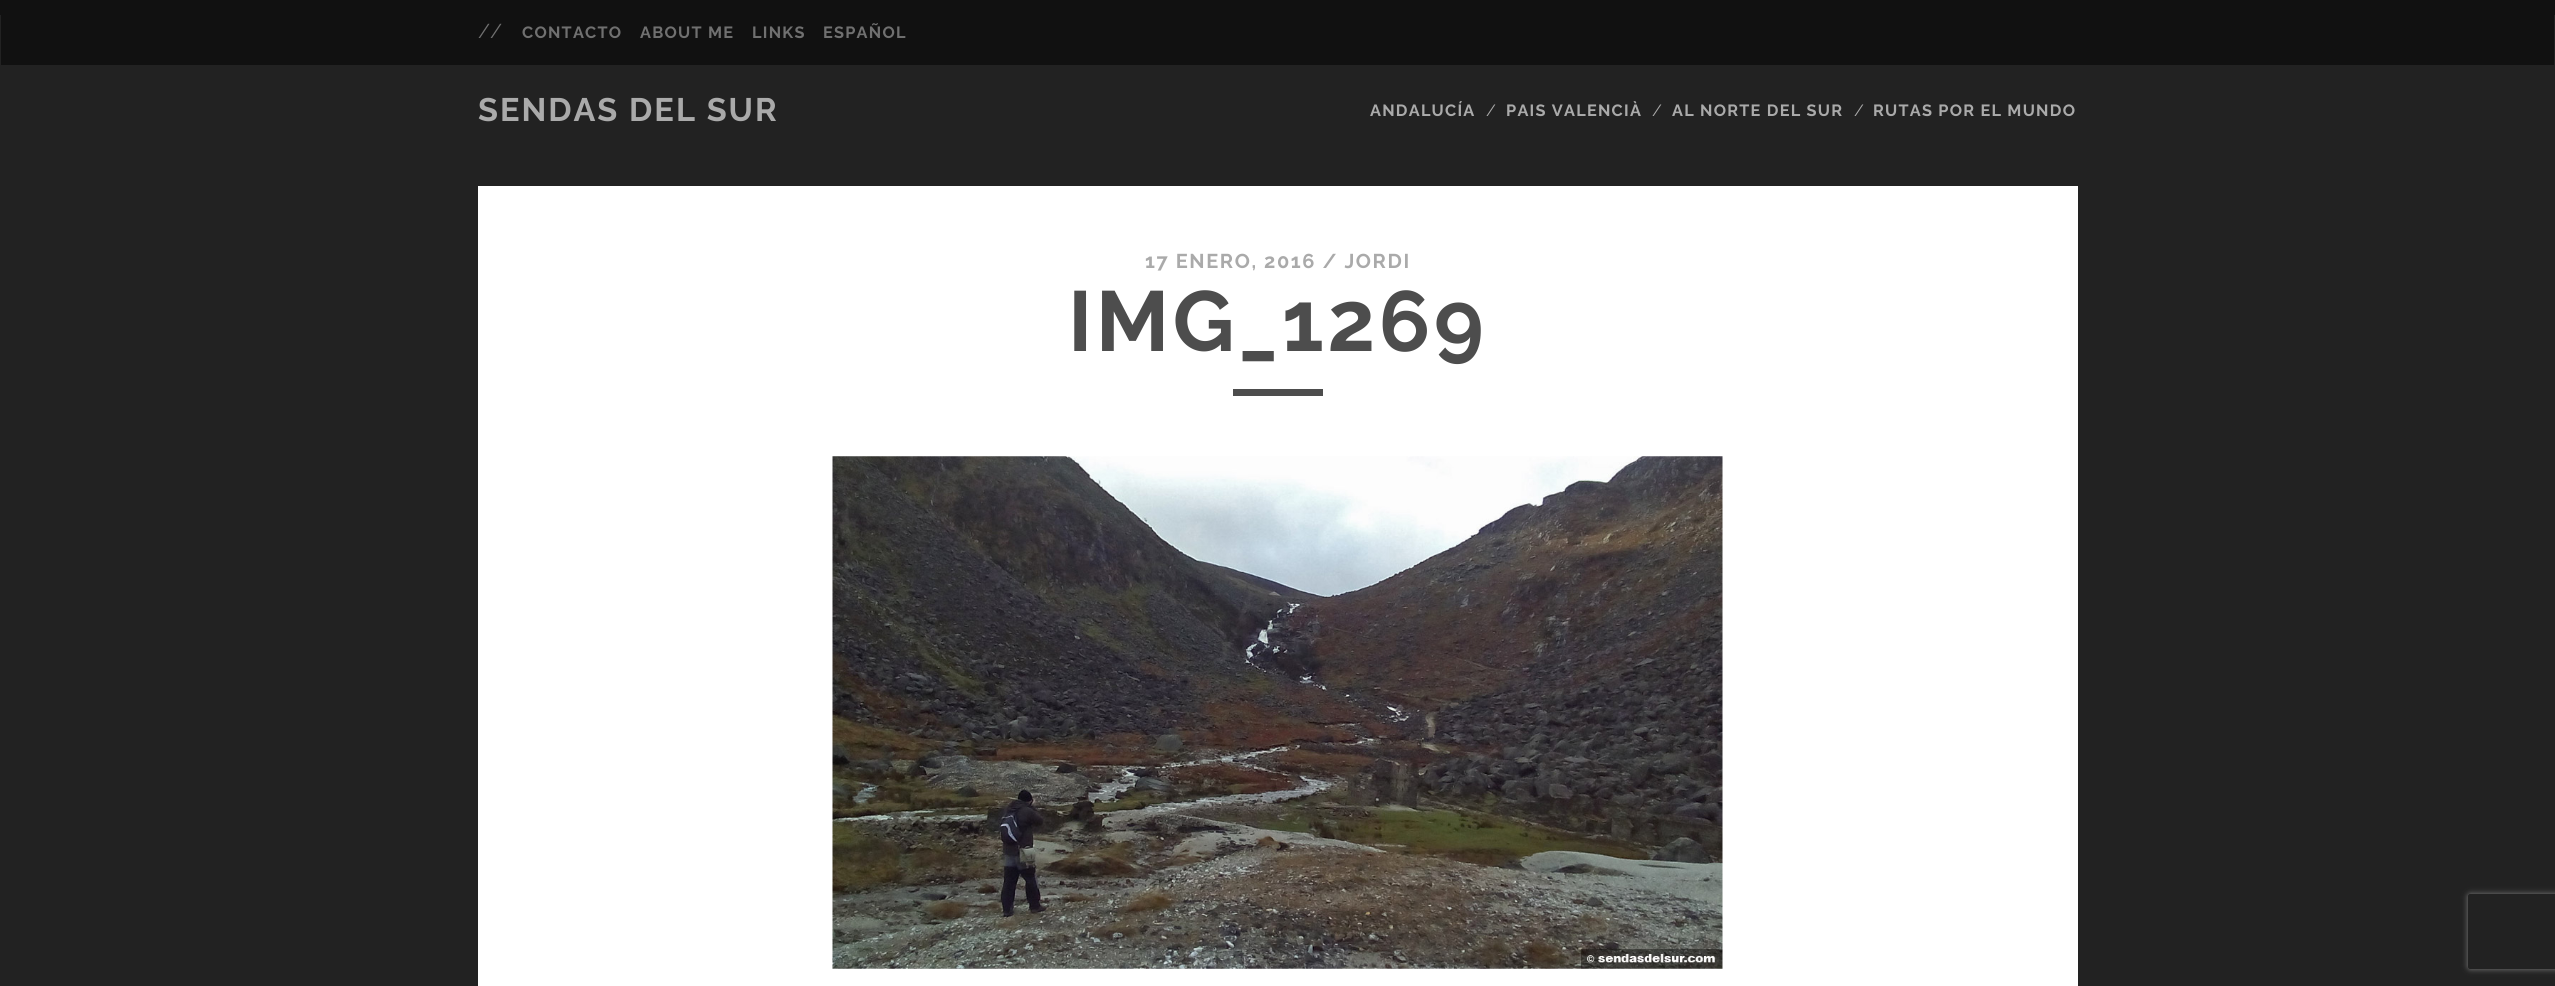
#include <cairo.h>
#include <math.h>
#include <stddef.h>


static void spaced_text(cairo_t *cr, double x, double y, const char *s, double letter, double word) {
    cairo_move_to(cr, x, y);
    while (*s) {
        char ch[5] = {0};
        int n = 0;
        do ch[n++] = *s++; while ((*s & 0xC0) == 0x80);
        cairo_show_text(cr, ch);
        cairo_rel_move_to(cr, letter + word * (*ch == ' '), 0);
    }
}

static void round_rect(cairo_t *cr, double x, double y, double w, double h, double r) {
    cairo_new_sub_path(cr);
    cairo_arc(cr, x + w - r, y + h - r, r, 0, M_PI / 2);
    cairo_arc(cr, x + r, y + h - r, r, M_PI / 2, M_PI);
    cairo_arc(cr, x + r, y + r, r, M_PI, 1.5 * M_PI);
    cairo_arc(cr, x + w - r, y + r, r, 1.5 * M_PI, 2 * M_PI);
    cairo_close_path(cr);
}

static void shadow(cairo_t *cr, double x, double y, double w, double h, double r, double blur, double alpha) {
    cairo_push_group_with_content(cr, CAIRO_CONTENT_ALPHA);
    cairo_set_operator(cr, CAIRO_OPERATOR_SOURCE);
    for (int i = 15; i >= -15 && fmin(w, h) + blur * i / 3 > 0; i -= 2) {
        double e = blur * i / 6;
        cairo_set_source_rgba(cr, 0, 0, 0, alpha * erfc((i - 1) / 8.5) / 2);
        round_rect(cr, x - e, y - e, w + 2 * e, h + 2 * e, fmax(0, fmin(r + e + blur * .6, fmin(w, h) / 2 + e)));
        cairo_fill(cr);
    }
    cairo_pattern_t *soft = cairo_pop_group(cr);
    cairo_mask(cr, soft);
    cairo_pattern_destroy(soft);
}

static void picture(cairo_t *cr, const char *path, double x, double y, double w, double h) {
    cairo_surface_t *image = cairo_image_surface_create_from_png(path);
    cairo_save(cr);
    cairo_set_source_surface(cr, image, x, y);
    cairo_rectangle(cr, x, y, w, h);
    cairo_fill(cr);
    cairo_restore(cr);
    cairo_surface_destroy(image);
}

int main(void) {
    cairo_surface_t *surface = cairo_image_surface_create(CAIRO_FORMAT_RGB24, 2555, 986);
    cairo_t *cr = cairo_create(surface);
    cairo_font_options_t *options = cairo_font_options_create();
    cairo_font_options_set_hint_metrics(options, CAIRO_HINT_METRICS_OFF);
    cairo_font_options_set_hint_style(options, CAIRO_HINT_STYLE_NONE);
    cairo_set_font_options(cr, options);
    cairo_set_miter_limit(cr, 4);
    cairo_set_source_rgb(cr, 0.133, 0.133, 0.133);
    cairo_paint(cr);
    cairo_set_source_rgb(cr, 0.067, 0.067, 0.067);
    cairo_rectangle(cr, 0, 0, 2555, 15);
    cairo_fill(cr);
    cairo_rectangle(cr, 1, 15, 2553, 50);
    cairo_fill(cr);
    cairo_select_font_face(cr, "Raleway", CAIRO_FONT_SLANT_NORMAL, CAIRO_FONT_WEIGHT_NORMAL);
    cairo_set_font_size(cr, 20);
    cairo_set_source_rgb(cr, 0.439, 0.439, 0.439);
    cairo_move_to(cr, 478, 38);
    cairo_show_text(cr, "//");
    cairo_select_font_face(cr, "Raleway", CAIRO_FONT_SLANT_NORMAL, CAIRO_FONT_WEIGHT_BOLD);
    cairo_set_font_size(cr, 16.25);
    spaced_text(cr, 522, 38, "CONTACTO", 1.25, 0);
    spaced_text(cr, 640, 38, "ABOUT ME", 1.25, 0);
    spaced_text(cr, 752, 38, "LINKS", 1.25, 0);
    spaced_text(cr, 823, 38, "ESPAÑOL", 1.25, 0);
    cairo_set_font_size(cr, 32.5);
    cairo_set_source_rgb(cr, 0.667, 0.667, 0.667);
    spaced_text(cr, 478, 121, "SENDAS DEL SUR", 2, 0);
    cairo_set_font_size(cr, 16.25);
    spaced_text(cr, 1370, 116, "ANDALUCÍA", 1.25, 0);
    cairo_select_font_face(cr, "Raleway", CAIRO_FONT_SLANT_NORMAL, CAIRO_FONT_WEIGHT_NORMAL);
    cairo_move_to(cr, 1486, 116);
    cairo_show_text(cr, "/");
    cairo_select_font_face(cr, "Raleway", CAIRO_FONT_SLANT_NORMAL, CAIRO_FONT_WEIGHT_BOLD);
    spaced_text(cr, 1506, 116, "PAIS VALENCIÀ", 1.25, 0);
    cairo_select_font_face(cr, "Raleway", CAIRO_FONT_SLANT_NORMAL, CAIRO_FONT_WEIGHT_NORMAL);
    cairo_move_to(cr, 1652, 116);
    cairo_show_text(cr, "/");
    cairo_select_font_face(cr, "Raleway", CAIRO_FONT_SLANT_NORMAL, CAIRO_FONT_WEIGHT_BOLD);
    spaced_text(cr, 1672, 116, "AL NORTE DEL SUR", 1.25, 0);
    cairo_select_font_face(cr, "Raleway", CAIRO_FONT_SLANT_NORMAL, CAIRO_FONT_WEIGHT_NORMAL);
    cairo_move_to(cr, 1854, 116);
    cairo_show_text(cr, "/");
    cairo_select_font_face(cr, "Raleway", CAIRO_FONT_SLANT_NORMAL, CAIRO_FONT_WEIGHT_BOLD);
    spaced_text(cr, 1873, 116, "RUTAS POR EL MUNDO", 1.25, 0);
    cairo_set_source_rgb(cr, 1, 1, 1);
    cairo_rectangle(cr, 478, 186, 1600, 800);
    cairo_fill(cr);
    cairo_set_font_size(cr, 20);
    cairo_set_source_rgb(cr, 0.667, 0.667, 0.667);
    spaced_text(cr, 1145, 268, "17 ENERO, 2016 / JORDI", 1.6, 0);
    cairo_set_font_size(cr, 85);
    cairo_set_source_rgb(cr, 0.302, 0.302, 0.302);
    spaced_text(cr, 1068, 351, "IMG_1269", 3.5, 0);
    cairo_rectangle(cr, 1233, 389, 90, 7);
    cairo_fill(cr);
    picture(cr, "img1.png", 832, 456, 891, 513);
    cairo_save(cr);
    cairo_set_fill_rule(cr, CAIRO_FILL_RULE_EVEN_ODD);
    cairo_new_path(cr);
    cairo_move_to(cr, 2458, 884);
    cairo_line_to(cr, 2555, 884);
    cairo_line_to(cr, 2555, 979);
    cairo_line_to(cr, 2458, 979);
    cairo_close_path(cr);
    cairo_move_to(cr, 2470.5, 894);
    cairo_line_to(cr, 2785.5, 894);
    cairo_curve_to(cr, 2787, 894, 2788, 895, 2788, 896.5);
    cairo_line_to(cr, 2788, 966.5);
    cairo_curve_to(cr, 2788, 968, 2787, 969, 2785.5, 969);
    cairo_line_to(cr, 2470.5, 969);
    cairo_curve_to(cr, 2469, 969, 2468, 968, 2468, 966.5);
    cairo_line_to(cr, 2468, 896.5);
    cairo_curve_to(cr, 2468, 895, 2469, 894, 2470.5, 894);
    cairo_close_path(cr);
    cairo_clip(cr);
    cairo_set_source_rgb(cr, 0.502, 0.502, 0.502);
    shadow(cr, 2468, 894, 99, 75, 2.5, 3, 1);
    cairo_restore(cr);
    cairo_surface_write_to_png(surface, "page.png");
    cairo_font_options_destroy(options);
    cairo_destroy(cr);
    cairo_surface_destroy(surface);
    return 0;
}
